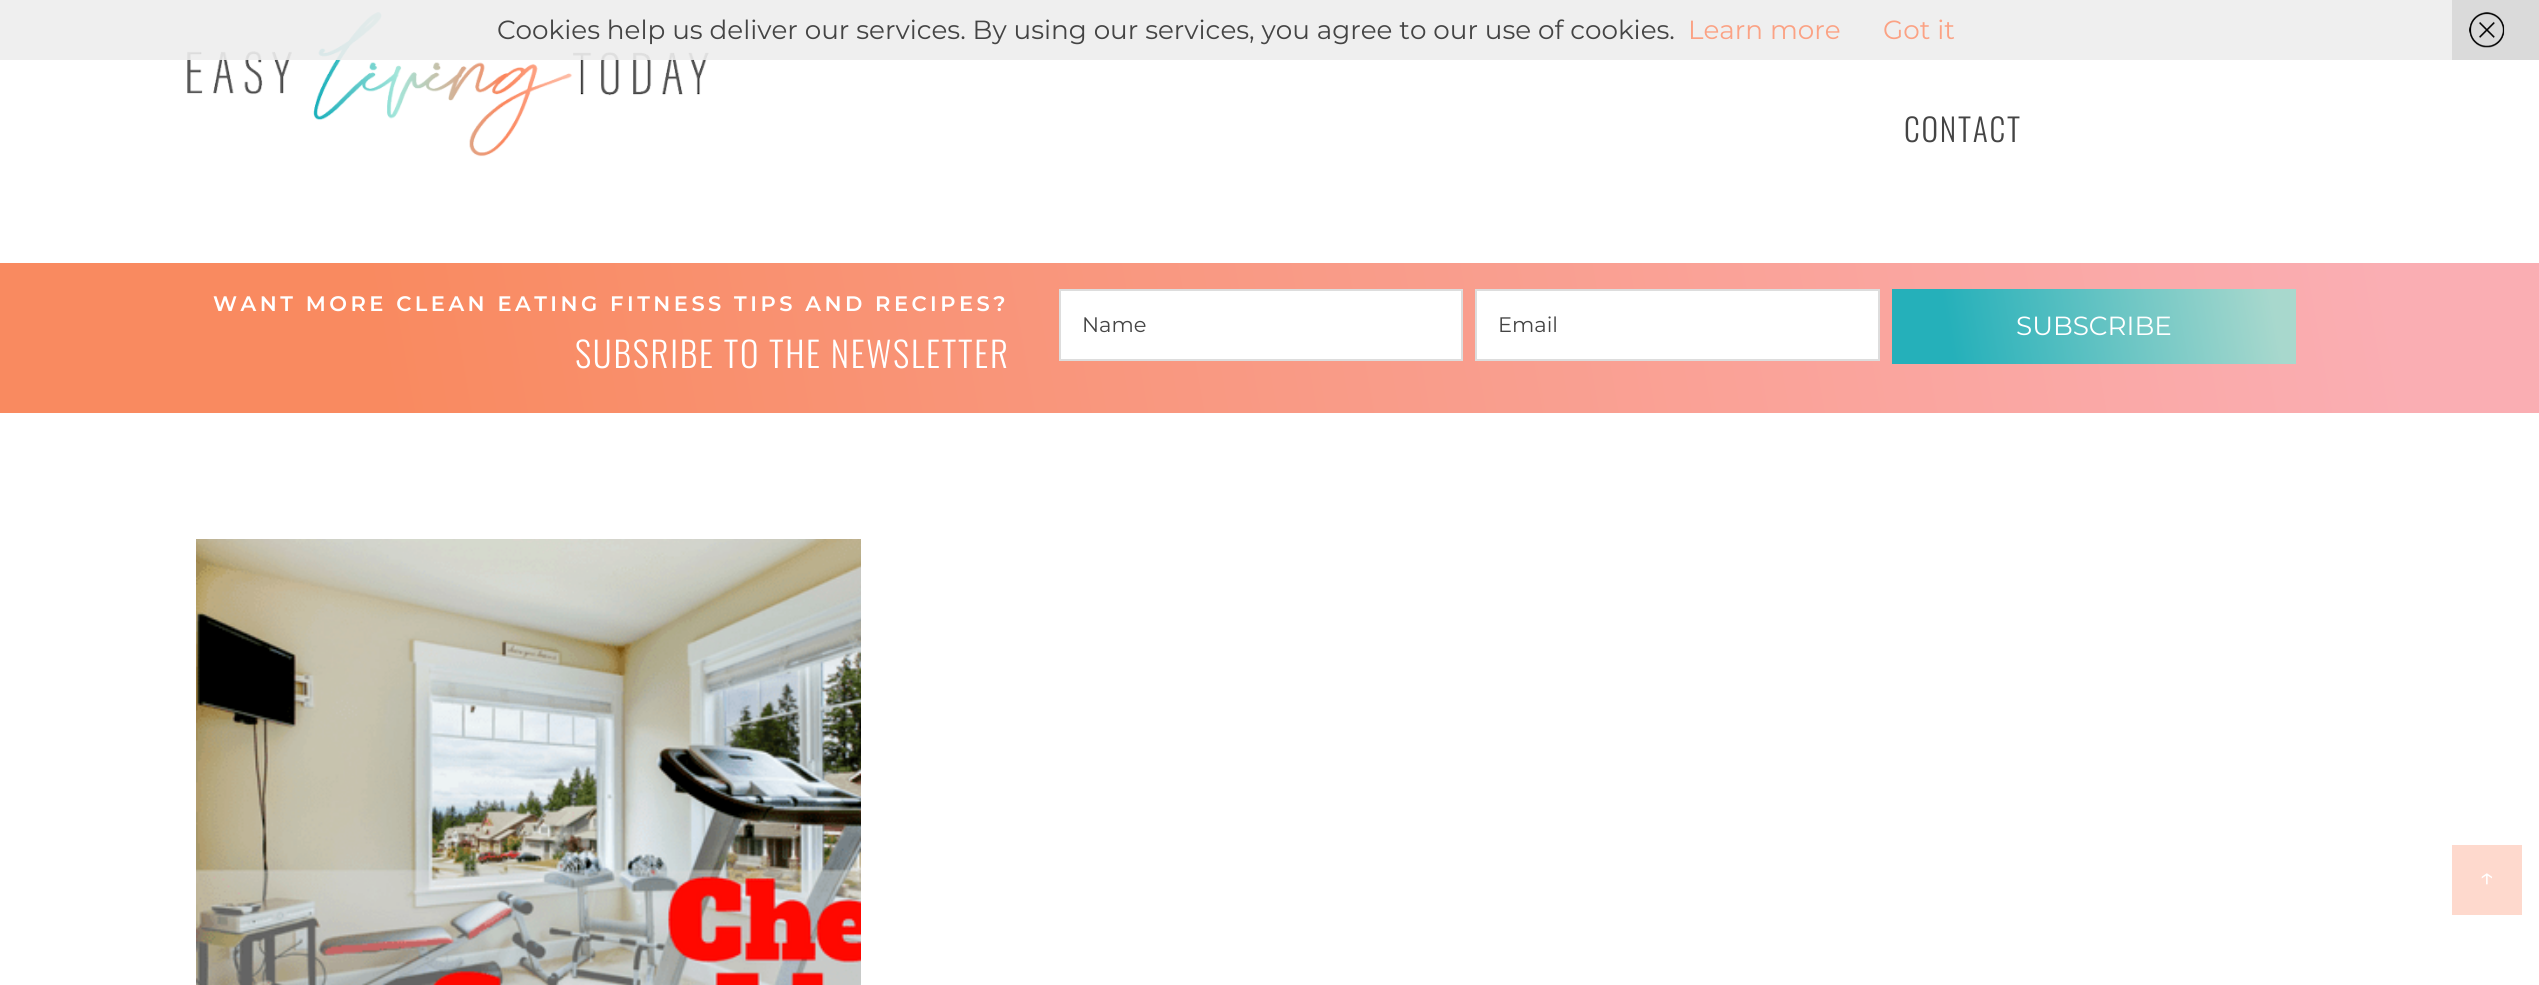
#include <cairo.h>
#include <math.h>
#include <stddef.h>


static void spaced_text(cairo_t *cr, double x, double y, const char *s, double letter, double word) {
    cairo_move_to(cr, x, y);
    while (*s) {
        char ch[5] = {0};
        int n = 0;
        do ch[n++] = *s++; while ((*s & 0xC0) == 0x80);
        cairo_show_text(cr, ch);
        cairo_rel_move_to(cr, letter + word * (*ch == ' '), 0);
    }
}

static void picture(cairo_t *cr, const char *path, double x, double y, double w, double h) {
    cairo_surface_t *image = cairo_image_surface_create_from_png(path);
    cairo_save(cr);
    cairo_set_source_surface(cr, image, x, y);
    cairo_rectangle(cr, x, y, w, h);
    cairo_fill(cr);
    cairo_restore(cr);
    cairo_surface_destroy(image);
}

int main(void) {
    cairo_surface_t *surface = cairo_image_surface_create(CAIRO_FORMAT_RGB24, 2539, 985);
    cairo_t *cr = cairo_create(surface);
    cairo_font_options_t *options = cairo_font_options_create();
    cairo_font_options_set_hint_metrics(options, CAIRO_HINT_METRICS_OFF);
    cairo_font_options_set_hint_style(options, CAIRO_HINT_STYLE_NONE);
    cairo_set_font_options(cr, options);
    cairo_set_miter_limit(cr, 4);
    cairo_pattern_t *gradient;
    cairo_set_source_rgb(cr, 1, 1, 1);
    cairo_paint(cr);
    picture(cr, "img2.png", 187, 12, 522, 145);
    cairo_set_source_rgba(cr, 0.933, 0.933, 0.933, 0.9);
    cairo_rectangle(cr, 0, 0, 2452, 60);
    cairo_fill(cr);
    cairo_select_font_face(cr, "Montserrat", CAIRO_FONT_SLANT_NORMAL, CAIRO_FONT_WEIGHT_NORMAL);
    cairo_set_font_size(cr, 26.25);
    cairo_set_source_rgb(cr, 0.267, 0.267, 0.267);
    cairo_move_to(cr, 497, 39);
    cairo_show_text(cr, "Cookies help us deliver our services. By using our services, you agree to our use of cookies.");
    cairo_set_source_rgb(cr, 0.984, 0.635, 0.518);
    cairo_move_to(cr, 1688, 39);
    cairo_show_text(cr, "Learn more");
    cairo_move_to(cr, 1883, 39);
    cairo_show_text(cr, "Got it");
    cairo_set_source_rgb(cr, 0.855, 0.855, 0.855);
    cairo_rectangle(cr, 2452, 0, 87, 60);
    cairo_fill(cr);
    picture(cr, "img1.png", 2469, 12, 36, 36);
    cairo_select_font_face(cr, "Oswald Light", CAIRO_FONT_SLANT_NORMAL, CAIRO_FONT_WEIGHT_NORMAL);
    cairo_set_font_size(cr, 31.5);
    cairo_set_source_rgb(cr, 0.267, 0.267, 0.267);
    spaced_text(cr, 1904, 142, "CONTACT", 1.75, 0);
    gradient = cairo_pattern_create_linear(2514, 118, 25, 557);
    cairo_pattern_add_color_stop_rgba(gradient, 0.06, 0.98, 0.682, 0.702, 1);
    cairo_pattern_add_color_stop_rgba(gradient, 0.85, 0.976, 0.541, 0.376, 1);
    cairo_set_source(cr, gradient);
    cairo_pattern_destroy(gradient);
    cairo_rectangle(cr, 0, 263, 2539, 150);
    cairo_fill(cr);
    cairo_select_font_face(cr, "Montserrat SemiBold", CAIRO_FONT_SLANT_NORMAL, CAIRO_FONT_WEIGHT_NORMAL);
    cairo_set_font_size(cr, 21);
    cairo_set_source_rgb(cr, 1, 1, 1);
    spaced_text(cr, 213, 311, "WANT MORE CLEAN EATING FITNESS TIPS AND RECIPES?", 3.5, 0);
    cairo_select_font_face(cr, "Oswald Light", CAIRO_FONT_SLANT_NORMAL, CAIRO_FONT_WEIGHT_NORMAL);
    cairo_set_font_size(cr, 35);
    spaced_text(cr, 575, 368, "SUBSRIBE TO THE NEWSLETTER", 1.75, 0);
    cairo_rectangle(cr, 1060, 290, 402, 70);
    cairo_fill_preserve(cr);
    cairo_set_source_rgb(cr, 0.867, 0.867, 0.867);
    cairo_stroke(cr);
    cairo_select_font_face(cr, "Montserrat", CAIRO_FONT_SLANT_NORMAL, CAIRO_FONT_WEIGHT_NORMAL);
    cairo_set_font_size(cr, 21);
    cairo_set_source_rgb(cr, 0.267, 0.267, 0.267);
    cairo_move_to(cr, 1082, 332);
    cairo_show_text(cr, "Name");
    cairo_set_source_rgb(cr, 1, 1, 1);
    cairo_rectangle(cr, 1476, 290, 403, 70);
    cairo_fill_preserve(cr);
    cairo_set_source_rgb(cr, 0.867, 0.867, 0.867);
    cairo_stroke(cr);
    cairo_set_source_rgb(cr, 0.267, 0.267, 0.267);
    cairo_move_to(cr, 1498, 332);
    cairo_show_text(cr, "Email");
    gradient = cairo_pattern_create_linear(2296, 291, 1891, 362);
    cairo_pattern_add_color_stop_rgba(gradient, 0.06, 0.659, 0.847, 0.804, 1);
    cairo_pattern_add_color_stop_rgba(gradient, 0.85, 0.145, 0.69, 0.729, 1);
    cairo_set_source(cr, gradient);
    cairo_pattern_destroy(gradient);
    cairo_rectangle(cr, 1892, 289, 404, 75);
    cairo_fill(cr);
    cairo_set_font_size(cr, 26.25);
    cairo_set_source_rgb(cr, 1, 1, 1);
    cairo_move_to(cr, 2016, 335);
    cairo_show_text(cr, "SUBSCRIBE");
    picture(cr, "img3.png", 196, 539, 665, 446);
    cairo_set_source_rgb(cr, 0.996, 0.851, 0.804);
    cairo_rectangle(cr, 2452, 845, 70, 70);
    cairo_fill(cr);
    cairo_set_source_rgb(cr, 1, 1, 1);
    cairo_move_to(cr, 2479, 886);
    cairo_show_text(cr, "↑");
    cairo_surface_write_to_png(surface, "page.png");
    cairo_font_options_destroy(options);
    cairo_destroy(cr);
    cairo_surface_destroy(surface);
    return 0;
}
